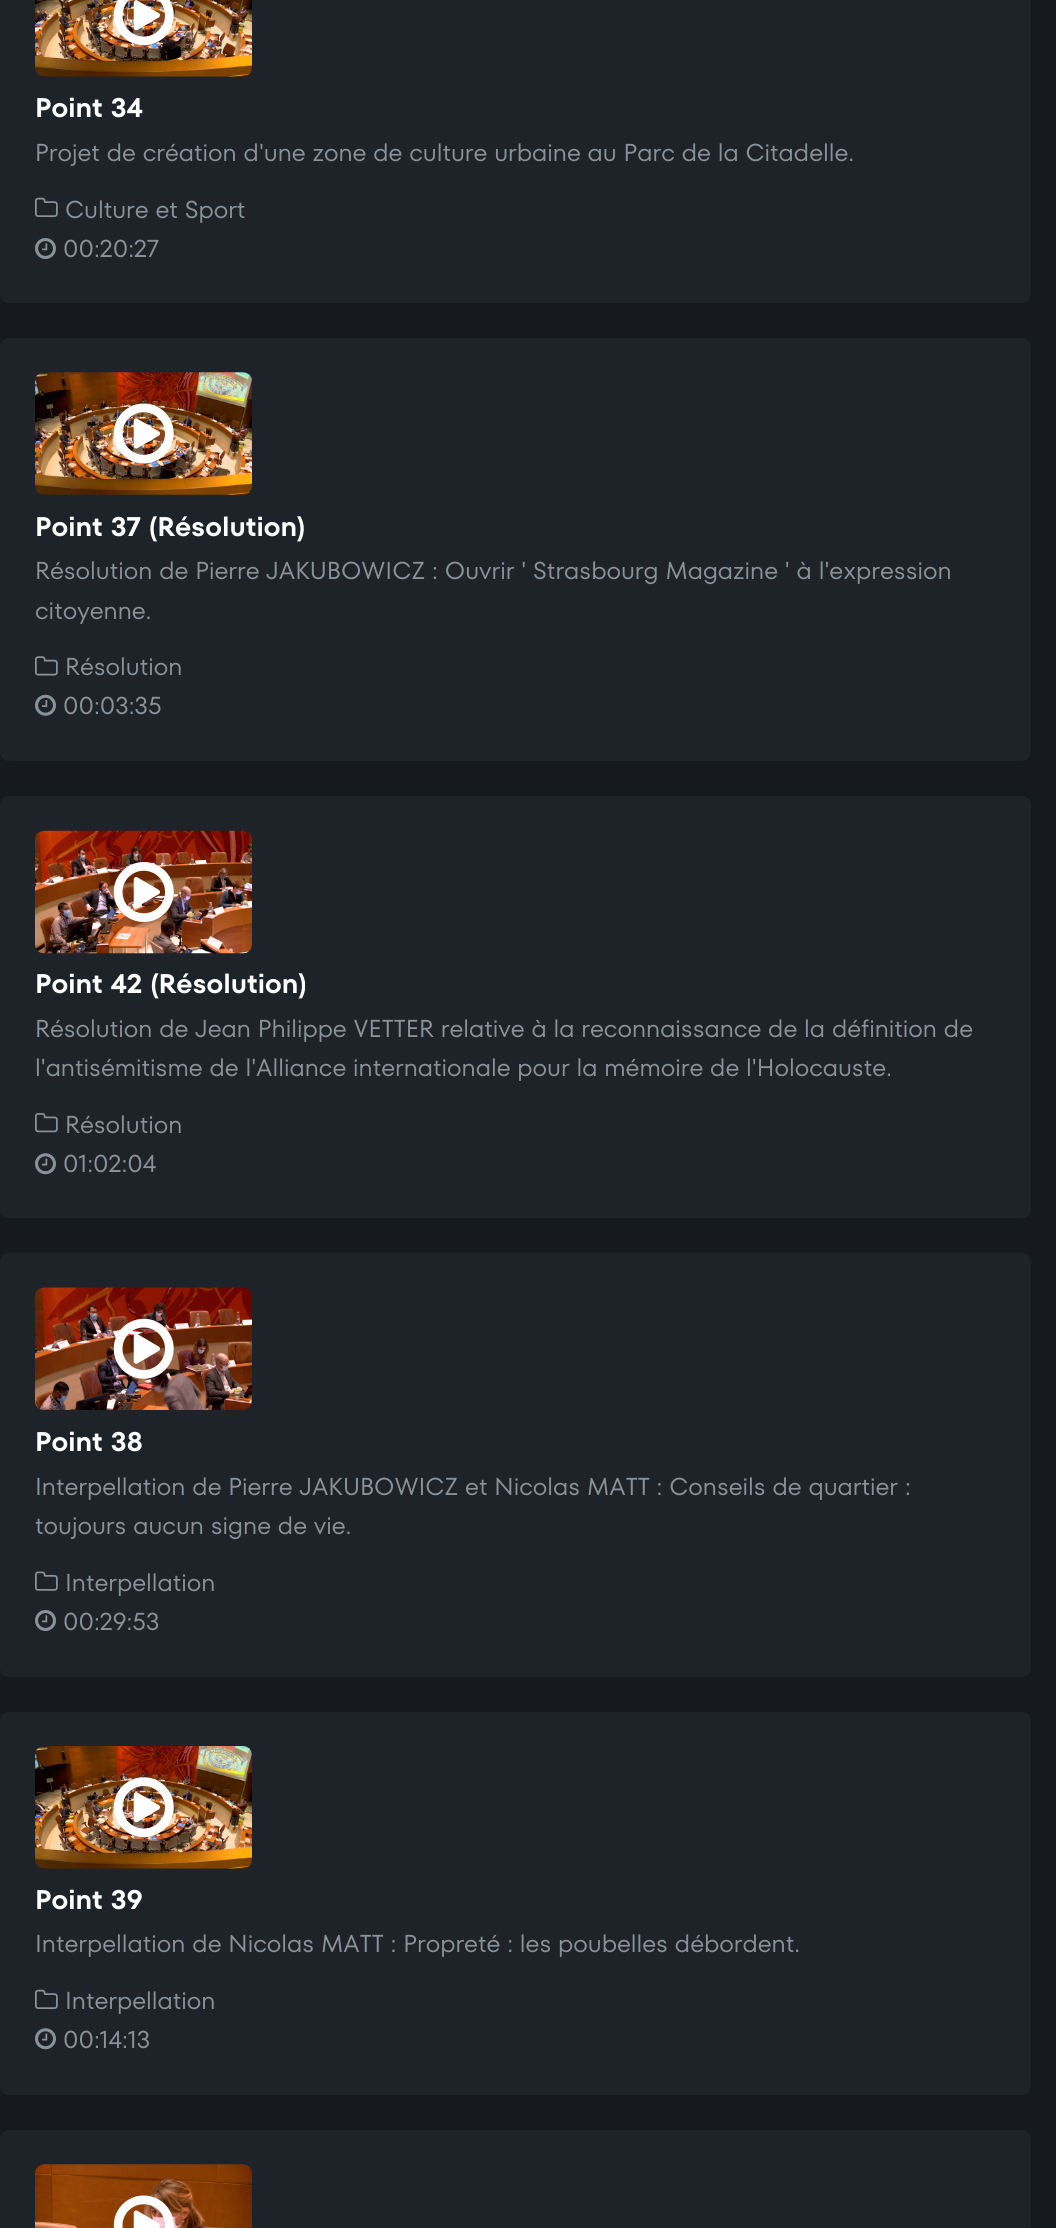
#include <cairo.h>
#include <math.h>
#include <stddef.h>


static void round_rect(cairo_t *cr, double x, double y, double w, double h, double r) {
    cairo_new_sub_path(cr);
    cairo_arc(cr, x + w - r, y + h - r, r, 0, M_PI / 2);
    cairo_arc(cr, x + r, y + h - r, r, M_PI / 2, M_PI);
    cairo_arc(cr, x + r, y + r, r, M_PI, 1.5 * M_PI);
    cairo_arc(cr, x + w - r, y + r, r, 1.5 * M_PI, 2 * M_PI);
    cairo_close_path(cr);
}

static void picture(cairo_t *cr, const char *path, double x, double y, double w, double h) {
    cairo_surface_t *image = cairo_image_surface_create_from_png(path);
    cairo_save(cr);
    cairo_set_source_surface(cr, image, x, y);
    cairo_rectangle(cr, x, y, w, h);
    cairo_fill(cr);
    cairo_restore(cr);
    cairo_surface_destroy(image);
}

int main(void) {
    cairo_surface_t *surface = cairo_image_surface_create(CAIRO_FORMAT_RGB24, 1056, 2228);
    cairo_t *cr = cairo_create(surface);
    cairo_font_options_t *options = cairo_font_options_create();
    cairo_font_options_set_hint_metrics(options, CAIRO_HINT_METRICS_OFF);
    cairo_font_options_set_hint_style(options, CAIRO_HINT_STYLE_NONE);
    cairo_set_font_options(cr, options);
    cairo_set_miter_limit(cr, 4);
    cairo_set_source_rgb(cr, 0.086, 0.102, 0.122);
    cairo_paint(cr);
    cairo_set_source_rgb(cr, 0.114, 0.137, 0.161);
    round_rect(cr, 0, -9, 1031, 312, 9);
    cairo_fill(cr);
    picture(cr, "img1.png", 35, 0, 217, 77);
    picture(cr, "img2.png", 113, 0, 61, 46);
    cairo_select_font_face(cr, "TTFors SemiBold", CAIRO_FONT_SLANT_NORMAL, CAIRO_FONT_WEIGHT_NORMAL);
    cairo_set_font_size(cr, 27);
    cairo_set_source_rgb(cr, 1, 1, 1);
    cairo_move_to(cr, 35, 117);
    cairo_show_text(cr, "Point 34");
    cairo_select_font_face(cr, "TTFors", CAIRO_FONT_SLANT_NORMAL, CAIRO_FONT_WEIGHT_NORMAL);
    cairo_set_font_size(cr, 24.5);
    cairo_set_source_rgb(cr, 0.537, 0.569, 0.608);
    cairo_move_to(cr, 35, 161);
    cairo_show_text(cr, "Projet de création d'une zone de culture urbaine au Parc de la Citadelle.");
    picture(cr, "img3.png", 35, 197, 23, 20);
    cairo_move_to(cr, 65, 218);
    cairo_show_text(cr, "Culture et Sport");
    picture(cr, "img4.png", 35, 238, 21, 21);
    cairo_move_to(cr, 63, 257);
    cairo_show_text(cr, "00:20:27");
    cairo_set_source_rgb(cr, 0.114, 0.137, 0.161);
    round_rect(cr, 0, 338, 1031, 423, 9);
    cairo_fill(cr);
    picture(cr, "img5.png", 35, 372, 217, 123);
    picture(cr, "img6.png", 113, 403, 61, 61);
    cairo_select_font_face(cr, "TTFors SemiBold", CAIRO_FONT_SLANT_NORMAL, CAIRO_FONT_WEIGHT_NORMAL);
    cairo_set_font_size(cr, 27);
    cairo_set_source_rgb(cr, 1, 1, 1);
    cairo_move_to(cr, 35, 536);
    cairo_show_text(cr, "Point 37 (Résolution)");
    cairo_select_font_face(cr, "TTFors", CAIRO_FONT_SLANT_NORMAL, CAIRO_FONT_WEIGHT_NORMAL);
    cairo_set_font_size(cr, 24.5);
    cairo_set_source_rgb(cr, 0.537, 0.569, 0.608);
    cairo_move_to(cr, 35, 579);
    cairo_show_text(cr, "Résolution de Pierre JAKUBOWICZ : Ouvrir ' Strasbourg Magazine ' à l'expression");
    cairo_move_to(cr, 35, 619);
    cairo_show_text(cr, "citoyenne.");
    picture(cr, "img7.png", 35, 656, 23, 20);
    cairo_move_to(cr, 65, 675);
    cairo_show_text(cr, "Résolution");
    picture(cr, "img8.png", 35, 694, 21, 22);
    cairo_move_to(cr, 63, 714);
    cairo_show_text(cr, "00:03:35");
    cairo_set_source_rgb(cr, 0.114, 0.137, 0.161);
    round_rect(cr, 0, 796, 1031, 422, 9);
    cairo_fill(cr);
    picture(cr, "img9.png", 35, 830, 217, 124);
    picture(cr, "img10.png", 113, 862, 61, 60);
    cairo_select_font_face(cr, "TTFors SemiBold", CAIRO_FONT_SLANT_NORMAL, CAIRO_FONT_WEIGHT_NORMAL);
    cairo_set_font_size(cr, 27);
    cairo_set_source_rgb(cr, 1, 1, 1);
    cairo_move_to(cr, 35, 993);
    cairo_show_text(cr, "Point 42 (Résolution)");
    cairo_select_font_face(cr, "TTFors", CAIRO_FONT_SLANT_NORMAL, CAIRO_FONT_WEIGHT_NORMAL);
    cairo_set_font_size(cr, 24.5);
    cairo_set_source_rgb(cr, 0.537, 0.569, 0.608);
    cairo_move_to(cr, 35, 1037);
    cairo_show_text(cr, "Résolution de Jean Philippe VETTER relative à la reconnaissance de la définition de");
    cairo_move_to(cr, 35, 1076);
    cairo_show_text(cr, "l'antisémitisme de l'Alliance internationale pour la mémoire de l'Holocauste.");
    picture(cr, "img11.png", 35, 1113, 23, 20);
    cairo_move_to(cr, 65, 1133);
    cairo_show_text(cr, "Résolution");
    picture(cr, "img12.png", 35, 1153, 21, 22);
    cairo_move_to(cr, 63, 1172);
    cairo_show_text(cr, "01:02:04");
    cairo_set_source_rgb(cr, 0.114, 0.137, 0.161);
    round_rect(cr, 0, 1253, 1031, 424, 9);
    cairo_fill(cr);
    picture(cr, "img13.png", 34, 1287, 218, 123);
    picture(cr, "img14.png", 113, 1318, 61, 61);
    cairo_select_font_face(cr, "TTFors SemiBold", CAIRO_FONT_SLANT_NORMAL, CAIRO_FONT_WEIGHT_NORMAL);
    cairo_set_font_size(cr, 27);
    cairo_set_source_rgb(cr, 1, 1, 1);
    cairo_move_to(cr, 35, 1451);
    cairo_show_text(cr, "Point 38");
    cairo_select_font_face(cr, "TTFors", CAIRO_FONT_SLANT_NORMAL, CAIRO_FONT_WEIGHT_NORMAL);
    cairo_set_font_size(cr, 24.5);
    cairo_set_source_rgb(cr, 0.537, 0.569, 0.608);
    cairo_move_to(cr, 35, 1495);
    cairo_show_text(cr, "Interpellation de Pierre JAKUBOWICZ et Nicolas MATT : Conseils de quartier :");
    cairo_move_to(cr, 35, 1534);
    cairo_show_text(cr, "toujours aucun signe de vie.");
    picture(cr, "img15.png", 35, 1571, 23, 20);
    cairo_move_to(cr, 65, 1591);
    cairo_show_text(cr, "Interpellation");
    picture(cr, "img4.png", 35, 1610, 21, 21);
    cairo_move_to(cr, 63, 1630);
    cairo_show_text(cr, "00:29:53");
    cairo_set_source_rgb(cr, 0.114, 0.137, 0.161);
    round_rect(cr, 0, 1712, 1031, 383, 9);
    cairo_fill(cr);
    picture(cr, "img16.png", 35, 1746, 217, 123);
    picture(cr, "img17.png", 113, 1777, 61, 61);
    cairo_select_font_face(cr, "TTFors SemiBold", CAIRO_FONT_SLANT_NORMAL, CAIRO_FONT_WEIGHT_NORMAL);
    cairo_set_font_size(cr, 27);
    cairo_set_source_rgb(cr, 1, 1, 1);
    cairo_move_to(cr, 35, 1909);
    cairo_show_text(cr, "Point 39");
    cairo_select_font_face(cr, "TTFors", CAIRO_FONT_SLANT_NORMAL, CAIRO_FONT_WEIGHT_NORMAL);
    cairo_set_font_size(cr, 24.5);
    cairo_set_source_rgb(cr, 0.537, 0.569, 0.608);
    cairo_move_to(cr, 35, 1952);
    cairo_show_text(cr, "Interpellation de Nicolas MATT : Propreté : les poubelles débordent.");
    picture(cr, "img3.png", 35, 1989, 23, 20);
    cairo_move_to(cr, 65, 2009);
    cairo_show_text(cr, "Interpellation");
    picture(cr, "img12.png", 35, 2028, 21, 22);
    cairo_move_to(cr, 63, 2048);
    cairo_show_text(cr, "00:14:13");
    cairo_set_source_rgb(cr, 0.114, 0.137, 0.161);
    round_rect(cr, 0, 2130, 1031, 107, 9);
    cairo_fill(cr);
    picture(cr, "img18.png", 35, 2164, 217, 64);
    picture(cr, "img19.png", 113, 2195, 61, 33);
    cairo_surface_write_to_png(surface, "page.png");
    cairo_font_options_destroy(options);
    cairo_destroy(cr);
    cairo_surface_destroy(surface);
    return 0;
}
